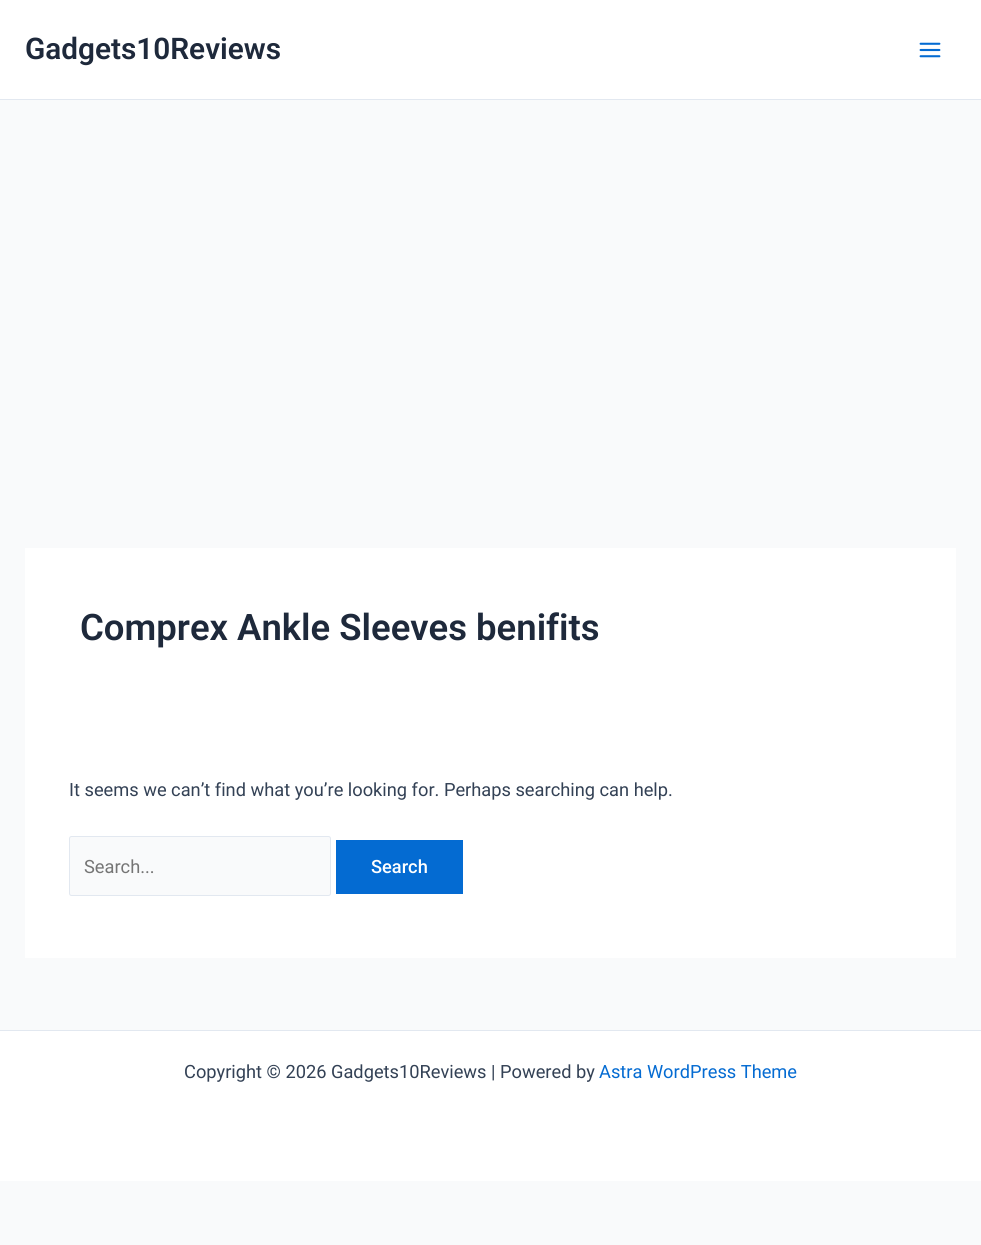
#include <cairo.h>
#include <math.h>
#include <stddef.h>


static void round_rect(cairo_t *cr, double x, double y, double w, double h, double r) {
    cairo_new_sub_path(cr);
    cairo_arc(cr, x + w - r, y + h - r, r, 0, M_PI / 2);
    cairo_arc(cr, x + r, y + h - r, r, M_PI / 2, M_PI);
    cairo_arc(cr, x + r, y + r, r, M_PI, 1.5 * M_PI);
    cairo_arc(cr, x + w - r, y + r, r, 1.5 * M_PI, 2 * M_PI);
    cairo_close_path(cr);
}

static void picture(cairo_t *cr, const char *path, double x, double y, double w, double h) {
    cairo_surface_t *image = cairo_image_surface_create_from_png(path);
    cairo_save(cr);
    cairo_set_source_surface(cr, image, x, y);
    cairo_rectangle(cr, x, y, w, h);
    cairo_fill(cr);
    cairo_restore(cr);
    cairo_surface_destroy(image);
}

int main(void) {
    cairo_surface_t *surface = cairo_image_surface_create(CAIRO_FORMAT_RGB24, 981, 1245);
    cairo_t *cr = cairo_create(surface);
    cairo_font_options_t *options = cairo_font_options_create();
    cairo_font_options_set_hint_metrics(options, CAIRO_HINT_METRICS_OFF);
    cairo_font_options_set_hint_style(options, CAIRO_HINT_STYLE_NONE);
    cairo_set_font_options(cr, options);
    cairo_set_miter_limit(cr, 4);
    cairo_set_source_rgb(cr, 0.976, 0.98, 0.984);
    cairo_paint(cr);
    cairo_set_source_rgb(cr, 1, 1, 1);
    cairo_rectangle(cr, 0, 0, 981, 99);
    cairo_fill(cr);
    cairo_set_source_rgb(cr, 0.886, 0.91, 0.941);
    cairo_rectangle(cr, 0, 99, 981, 1);
    cairo_fill(cr);
    cairo_select_font_face(cr, "Roboto SemiBold", CAIRO_FONT_SLANT_NORMAL, CAIRO_FONT_WEIGHT_NORMAL);
    cairo_set_font_size(cr, 29.75);
    cairo_set_source_rgb(cr, 0.118, 0.161, 0.231);
    cairo_move_to(cr, 25, 59);
    cairo_show_text(cr, "Gadgets10Reviews");
    picture(cr, "img1.png", 919, 42, 22, 16);
    cairo_set_source_rgb(cr, 1, 1, 1);
    cairo_rectangle(cr, 25, 548, 931, 410);
    cairo_fill(cr);
    cairo_set_font_size(cr, 36.5);
    cairo_set_source_rgb(cr, 0.118, 0.161, 0.231);
    cairo_move_to(cr, 80, 640);
    cairo_show_text(cr, "Comprex Ankle Sleeves benifits");
    cairo_select_font_face(cr, "Roboto", CAIRO_FONT_SLANT_NORMAL, CAIRO_FONT_WEIGHT_NORMAL);
    cairo_set_font_size(cr, 18.25);
    cairo_set_source_rgb(cr, 0.2, 0.255, 0.333);
    cairo_move_to(cr, 69, 796);
    cairo_show_text(cr, "It seems we can’t find what you’re looking for. Perhaps searching can help.");
    cairo_set_source_rgb(cr, 0.976, 0.98, 0.984);
    round_rect(cr, 69.5, 836.5, 261, 59, 2);
    cairo_fill_preserve(cr);
    cairo_set_source_rgb(cr, 0.886, 0.91, 0.941);
    cairo_set_line_width(cr, 1);
    cairo_stroke(cr);
    cairo_set_source_rgb(cr, 0.459, 0.459, 0.459);
    cairo_move_to(cr, 84, 873);
    cairo_show_text(cr, "Search...");
    cairo_set_source_rgb(cr, 0.016, 0.42, 0.824);
    cairo_rectangle(cr, 336, 840, 127, 54);
    cairo_fill(cr);
    cairo_select_font_face(cr, "Roboto Medium", CAIRO_FONT_SLANT_NORMAL, CAIRO_FONT_WEIGHT_NORMAL);
    cairo_set_source_rgb(cr, 1, 1, 1);
    cairo_move_to(cr, 371, 873);
    cairo_show_text(cr, "Search");
    cairo_rectangle(cr, 0, 1031, 981, 150);
    cairo_fill(cr);
    cairo_set_source_rgb(cr, 0.886, 0.91, 0.941);
    cairo_rectangle(cr, 0, 1030, 981, 1);
    cairo_fill(cr);
    cairo_select_font_face(cr, "Roboto", CAIRO_FONT_SLANT_NORMAL, CAIRO_FONT_WEIGHT_NORMAL);
    cairo_set_source_rgb(cr, 0.2, 0.255, 0.333);
    cairo_move_to(cr, 184, 1078);
    cairo_show_text(cr, "Copyright © 2026 Gadgets10Reviews | Powered by");
    cairo_set_source_rgb(cr, 0.016, 0.42, 0.824);
    cairo_move_to(cr, 599, 1078);
    cairo_show_text(cr, "Astra WordPress Theme");
    cairo_surface_write_to_png(surface, "page.png");
    cairo_font_options_destroy(options);
    cairo_destroy(cr);
    cairo_surface_destroy(surface);
    return 0;
}
